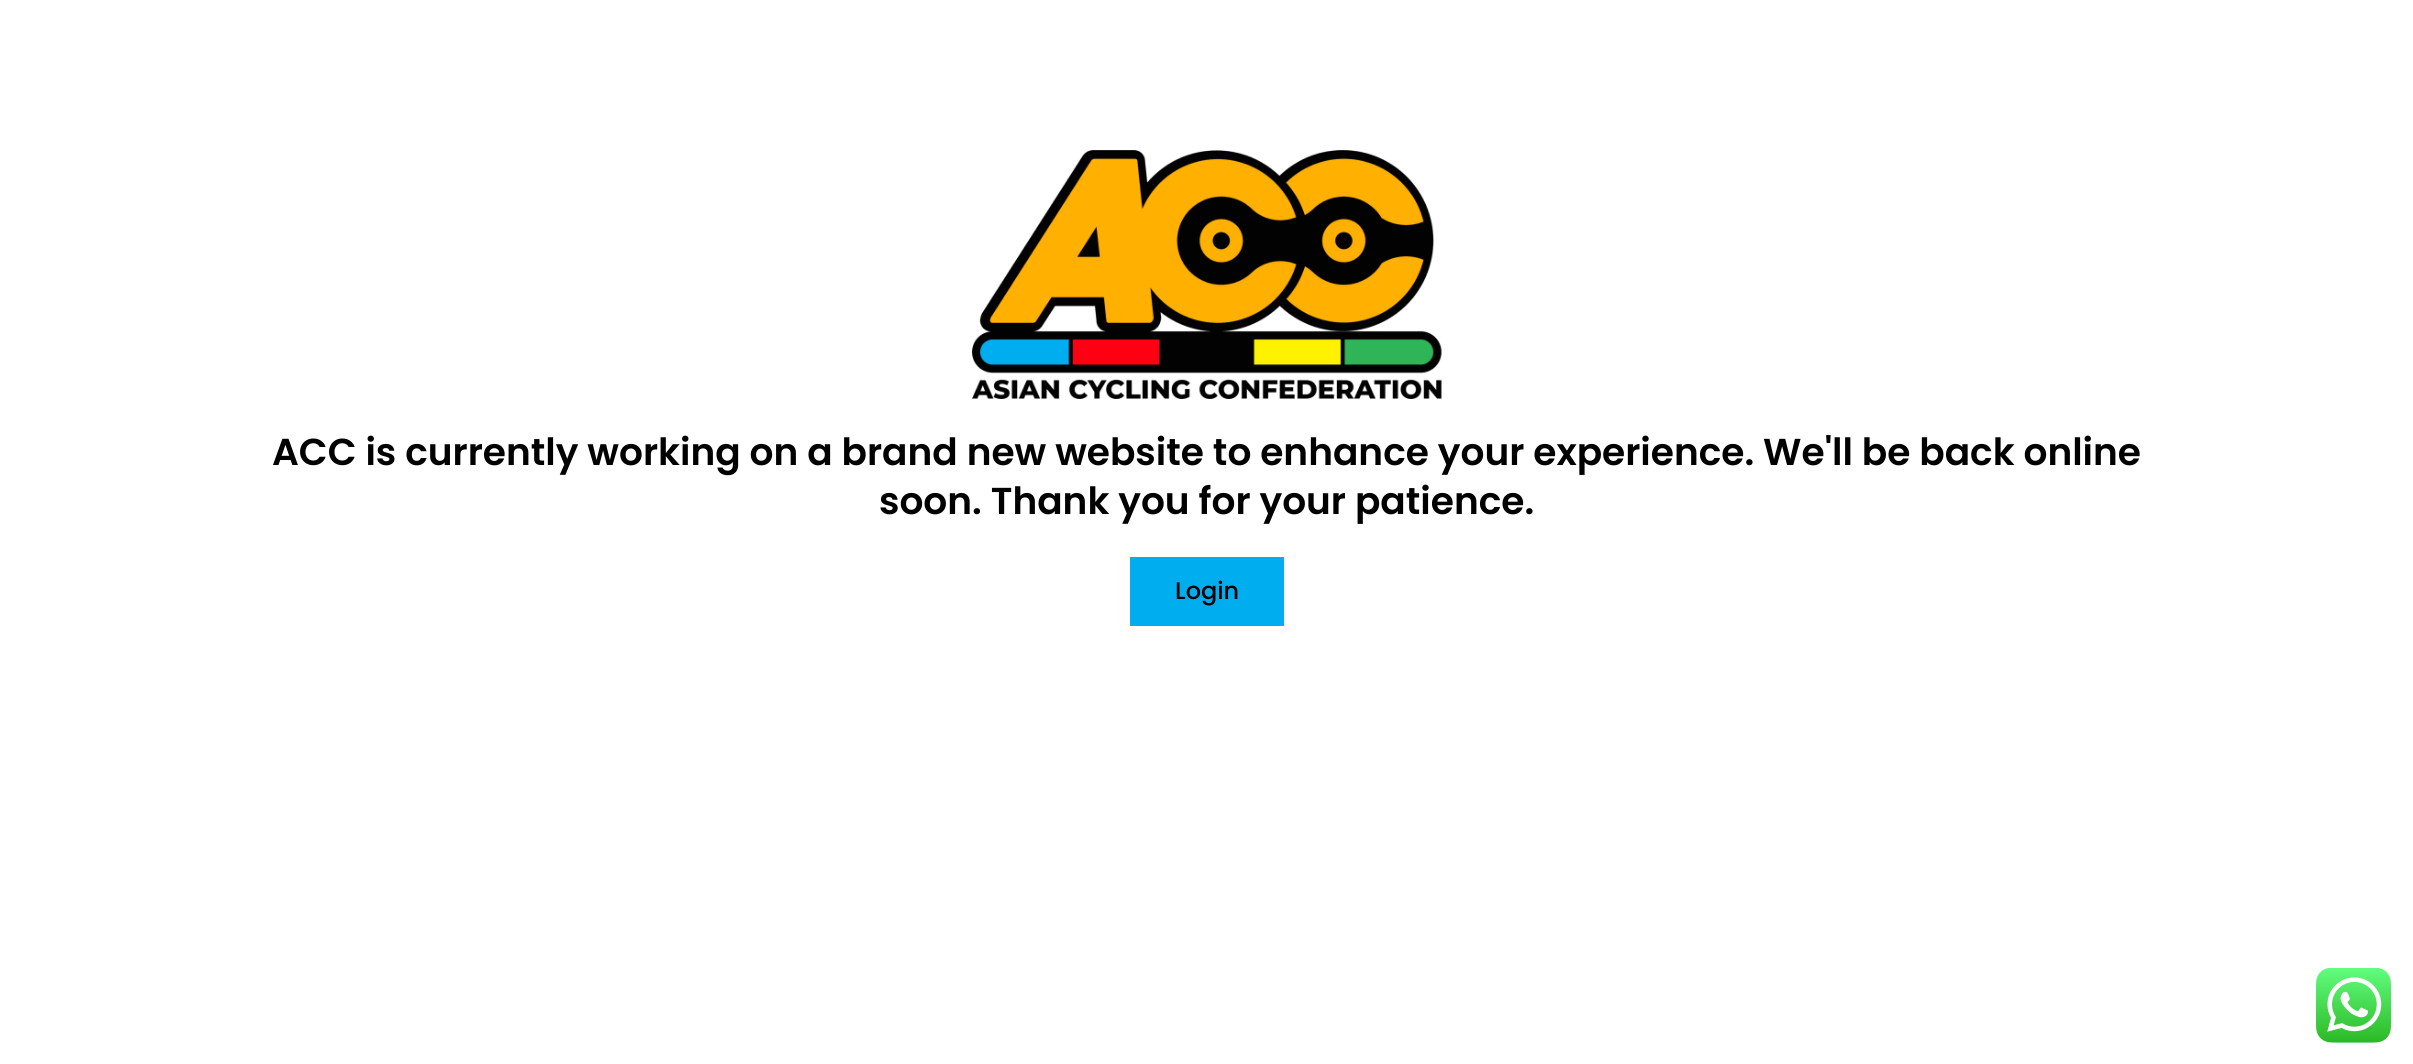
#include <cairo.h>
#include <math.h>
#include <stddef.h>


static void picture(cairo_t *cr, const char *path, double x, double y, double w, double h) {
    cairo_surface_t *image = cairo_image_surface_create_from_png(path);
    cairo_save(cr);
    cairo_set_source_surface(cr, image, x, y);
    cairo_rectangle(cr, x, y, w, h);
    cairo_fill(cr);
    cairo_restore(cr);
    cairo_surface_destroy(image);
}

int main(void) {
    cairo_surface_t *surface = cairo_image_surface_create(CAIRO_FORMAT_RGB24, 2413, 1064);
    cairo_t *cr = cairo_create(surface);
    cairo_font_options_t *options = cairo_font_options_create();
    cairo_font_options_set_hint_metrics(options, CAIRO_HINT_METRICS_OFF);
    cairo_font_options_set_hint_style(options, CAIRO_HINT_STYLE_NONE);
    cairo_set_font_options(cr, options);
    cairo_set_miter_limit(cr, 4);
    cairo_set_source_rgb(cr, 1, 1, 1);
    cairo_paint(cr);
    picture(cr, "img1.png", 972, 150, 470, 249);
    cairo_select_font_face(cr, "Poppins SemiBold", CAIRO_FONT_SLANT_NORMAL, CAIRO_FONT_WEIGHT_NORMAL);
    cairo_set_font_size(cr, 37.5);
    cairo_set_source_rgb(cr, 0, 0, 0);
    cairo_move_to(cr, 272, 465);
    cairo_show_text(cr, "ACC is currently working on a brand new website to enhance your experience. We'll be back online");
    cairo_move_to(cr, 879, 514);
    cairo_show_text(cr, "soon. Thank you for your patience.");
    cairo_set_source_rgb(cr, 0, 0.682, 0.937);
    cairo_rectangle(cr, 1130, 557, 154, 69);
    cairo_fill(cr);
    cairo_select_font_face(cr, "Poppins Medium", CAIRO_FONT_SLANT_NORMAL, CAIRO_FONT_WEIGHT_NORMAL);
    cairo_set_font_size(cr, 24);
    cairo_set_source_rgb(cr, 0, 0, 0);
    cairo_move_to(cr, 1175, 599);
    cairo_show_text(cr, "Login");
    picture(cr, "img2.png", 2316, 968, 75, 75);
    cairo_surface_write_to_png(surface, "page.png");
    cairo_font_options_destroy(options);
    cairo_destroy(cr);
    cairo_surface_destroy(surface);
    return 0;
}
